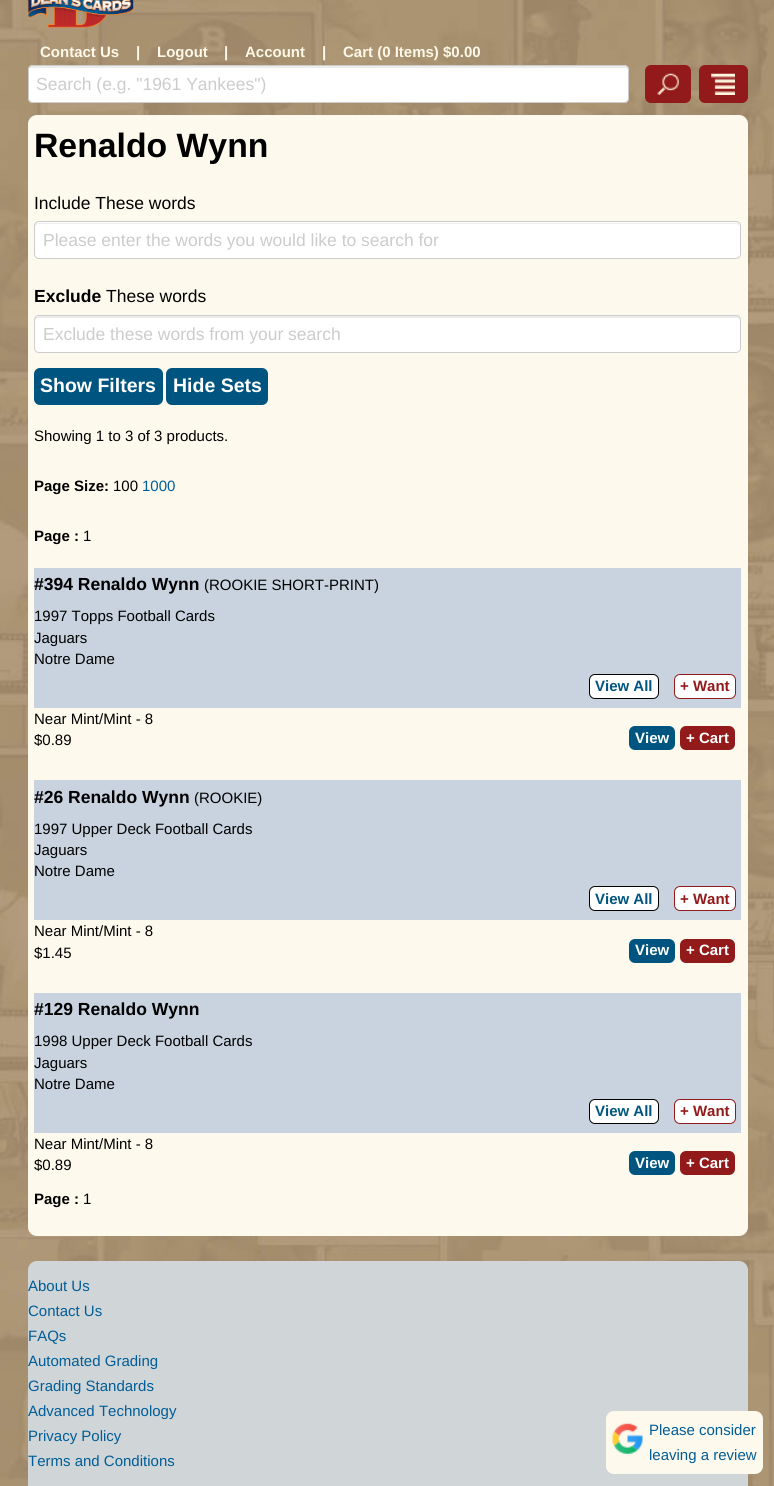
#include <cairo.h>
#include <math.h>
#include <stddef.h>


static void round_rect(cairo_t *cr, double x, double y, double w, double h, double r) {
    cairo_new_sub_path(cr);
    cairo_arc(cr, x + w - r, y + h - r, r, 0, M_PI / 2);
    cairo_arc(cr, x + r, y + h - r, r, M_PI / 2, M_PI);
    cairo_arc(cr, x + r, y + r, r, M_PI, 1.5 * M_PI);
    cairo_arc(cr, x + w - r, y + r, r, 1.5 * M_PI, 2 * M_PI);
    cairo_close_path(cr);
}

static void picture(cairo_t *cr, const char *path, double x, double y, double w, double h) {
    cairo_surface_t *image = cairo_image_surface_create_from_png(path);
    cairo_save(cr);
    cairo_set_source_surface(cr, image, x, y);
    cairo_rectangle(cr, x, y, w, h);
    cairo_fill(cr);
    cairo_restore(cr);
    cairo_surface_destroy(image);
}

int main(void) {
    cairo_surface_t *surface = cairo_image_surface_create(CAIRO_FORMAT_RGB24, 774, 1486);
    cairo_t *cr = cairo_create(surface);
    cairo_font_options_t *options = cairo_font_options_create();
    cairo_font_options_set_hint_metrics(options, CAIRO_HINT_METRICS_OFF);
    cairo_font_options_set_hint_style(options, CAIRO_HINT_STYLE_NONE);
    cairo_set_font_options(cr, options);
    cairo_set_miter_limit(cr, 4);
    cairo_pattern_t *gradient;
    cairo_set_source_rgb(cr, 1, 1, 1);
    cairo_paint(cr);
    picture(cr, "img1.png", 0, 0, 774, 1486);
    picture(cr, "img2.png", 27, 0, 107, 28);
    cairo_select_font_face(cr, "Liberation Sans", CAIRO_FONT_SLANT_NORMAL, CAIRO_FONT_WEIGHT_BOLD);
    cairo_set_font_size(cr, 15);
    cairo_set_source_rgb(cr, 0.992, 0.969, 0.906);
    cairo_move_to(cr, 40, 57);
    cairo_show_text(cr, "Contact Us");
    cairo_move_to(cr, 136, 57);
    cairo_show_text(cr, "|");
    cairo_move_to(cr, 157, 57);
    cairo_show_text(cr, "Logout");
    cairo_move_to(cr, 224, 57);
    cairo_show_text(cr, "|");
    cairo_move_to(cr, 245, 57);
    cairo_show_text(cr, "Account");
    cairo_move_to(cr, 322, 57);
    cairo_show_text(cr, "|");
    cairo_move_to(cr, 343, 57);
    cairo_show_text(cr, "Cart (0 Items) $0.00");
    cairo_set_source_rgb(cr, 1, 1, 1);
    round_rect(cr, 28, 65, 601, 38, 5);
    cairo_fill(cr);
    cairo_set_source_rgb(cr, 0.925, 0.925, 0.925);
    cairo_new_path(cr);
    cairo_move_to(cr, 32, 68);
    cairo_line_to(cr, 624, 68);
    cairo_curve_to(cr, 626, 68, 628, 69, 628, 71);
    cairo_line_to(cr, 628, 70);
    cairo_curve_to(cr, 628, 68, 626, 66, 624, 66);
    cairo_line_to(cr, 33, 66);
    cairo_curve_to(cr, 31, 66, 29, 68, 29, 70);
    cairo_line_to(cr, 29, 71);
    cairo_curve_to(cr, 29, 69, 30, 68, 32, 68);
    cairo_close_path(cr);
    cairo_fill(cr);
    round_rect(cr, 28.5, 65.5, 600, 37, 4.5);
    cairo_set_source_rgb(cr, 0.8, 0.8, 0.8);
    cairo_set_line_width(cr, 1);
    cairo_stroke(cr);
    cairo_select_font_face(cr, "Liberation Sans", CAIRO_FONT_SLANT_NORMAL, CAIRO_FONT_WEIGHT_NORMAL);
    cairo_set_font_size(cr, 17.5);
    cairo_move_to(cr, 36, 90);
    cairo_show_text(cr, "Search (e.g. \"1961 Yankees\")");
    gradient = cairo_pattern_create_linear(668, 65, 668, 103);
    cairo_pattern_add_color_stop_rgba(gradient, 0, 0.576, 0.102, 0.102, 1);
    cairo_pattern_add_color_stop_rgba(gradient, 1, 0.569, 0.102, 0.102, 1);
    cairo_set_source(cr, gradient);
    cairo_pattern_destroy(gradient);
    round_rect(cr, 645, 65, 46, 38, 6);
    cairo_fill(cr);
    picture(cr, "img3.png", 657, 73, 22, 22);
    gradient = cairo_pattern_create_linear(723, 65, 723, 103);
    cairo_pattern_add_color_stop_rgba(gradient, 0, 0.576, 0.102, 0.102, 1);
    cairo_pattern_add_color_stop_rgba(gradient, 1, 0.569, 0.102, 0.102, 1);
    cairo_set_source(cr, gradient);
    cairo_pattern_destroy(gradient);
    round_rect(cr, 699, 65, 49, 38, 6);
    cairo_fill(cr);
    picture(cr, "img4.png", 711, 73, 24, 22);
    cairo_set_source_rgb(cr, 0.992, 0.973, 0.929);
    round_rect(cr, 28, 115, 720, 1121, 9);
    cairo_fill(cr);
    cairo_select_font_face(cr, "Liberation Sans", CAIRO_FONT_SLANT_NORMAL, CAIRO_FONT_WEIGHT_BOLD);
    cairo_set_font_size(cr, 33.75);
    cairo_set_source_rgb(cr, 0, 0, 0);
    cairo_move_to(cr, 34, 157);
    cairo_show_text(cr, "Renaldo Wynn");
    cairo_select_font_face(cr, "Liberation Sans", CAIRO_FONT_SLANT_NORMAL, CAIRO_FONT_WEIGHT_NORMAL);
    cairo_set_font_size(cr, 17.5);
    cairo_move_to(cr, 34, 209);
    cairo_show_text(cr, "Include These words");
    cairo_set_source_rgb(cr, 1, 1, 1);
    round_rect(cr, 34, 221, 707, 38, 5);
    cairo_fill(cr);
    cairo_set_source_rgb(cr, 0.925, 0.925, 0.925);
    cairo_new_path(cr);
    cairo_move_to(cr, 39, 224);
    cairo_line_to(cr, 736, 224);
    cairo_curve_to(cr, 738, 224, 740, 225, 740, 228);
    cairo_curve_to(cr, 740, 225, 739, 223, 736, 223);
    cairo_line_to(cr, 39, 223);
    cairo_line_to(cr, 36, 224);
    cairo_line_to(cr, 35, 225);
    cairo_line_to(cr, 35, 228);
    cairo_curve_to(cr, 35, 225, 37, 224, 39, 224);
    cairo_close_path(cr);
    cairo_fill(cr);
    round_rect(cr, 34.5, 221.5, 706, 37, 4.5);
    cairo_set_source_rgb(cr, 0.8, 0.8, 0.8);
    cairo_stroke(cr);
    cairo_move_to(cr, 43, 246);
    cairo_show_text(cr, "Please enter the words you would like to search for");
    cairo_select_font_face(cr, "Liberation Sans", CAIRO_FONT_SLANT_NORMAL, CAIRO_FONT_WEIGHT_BOLD);
    cairo_set_source_rgb(cr, 0, 0, 0);
    cairo_move_to(cr, 34, 302);
    cairo_show_text(cr, "Exclude");
    cairo_select_font_face(cr, "Liberation Sans", CAIRO_FONT_SLANT_NORMAL, CAIRO_FONT_WEIGHT_NORMAL);
    cairo_move_to(cr, 106, 302);
    cairo_show_text(cr, "These words");
    cairo_set_source_rgb(cr, 1, 1, 1);
    round_rect(cr, 34, 315, 707, 38, 5);
    cairo_fill(cr);
    cairo_set_source_rgb(cr, 0.925, 0.925, 0.925);
    cairo_new_path(cr);
    cairo_move_to(cr, 39, 318);
    cairo_line_to(cr, 736, 318);
    cairo_curve_to(cr, 738, 318, 740, 319, 740, 321);
    cairo_curve_to(cr, 740, 318, 739, 316, 736, 316);
    cairo_line_to(cr, 39, 316);
    cairo_line_to(cr, 36, 317);
    cairo_line_to(cr, 35, 318);
    cairo_line_to(cr, 35, 321);
    cairo_curve_to(cr, 35, 319, 37, 318, 39, 318);
    cairo_close_path(cr);
    cairo_fill(cr);
    round_rect(cr, 34.5, 315.5, 706, 37, 4.5);
    cairo_set_source_rgb(cr, 0.8, 0.8, 0.8);
    cairo_stroke(cr);
    cairo_move_to(cr, 43, 340);
    cairo_show_text(cr, "Exclude these words from your search");
    cairo_set_source_rgb(cr, 0, 0.333, 0.502);
    round_rect(cr, 34, 368, 129, 37, 6);
    cairo_fill(cr);
    cairo_select_font_face(cr, "Liberation Sans", CAIRO_FONT_SLANT_NORMAL, CAIRO_FONT_WEIGHT_BOLD);
    cairo_set_font_size(cr, 19.5);
    cairo_set_source_rgb(cr, 1, 1, 1);
    cairo_move_to(cr, 40, 392);
    cairo_show_text(cr, "Show Filters");
    cairo_set_source_rgb(cr, 0, 0.333, 0.502);
    round_rect(cr, 166, 368, 102, 37, 6);
    cairo_fill(cr);
    cairo_set_source_rgb(cr, 1, 1, 1);
    cairo_move_to(cr, 173, 392);
    cairo_show_text(cr, "Hide Sets");
    cairo_select_font_face(cr, "Liberation Sans", CAIRO_FONT_SLANT_NORMAL, CAIRO_FONT_WEIGHT_NORMAL);
    cairo_set_font_size(cr, 15);
    cairo_set_source_rgb(cr, 0, 0, 0);
    cairo_move_to(cr, 34, 441);
    cairo_show_text(cr, "Showing 1 to 3 of 3 products.");
    cairo_select_font_face(cr, "Liberation Sans", CAIRO_FONT_SLANT_NORMAL, CAIRO_FONT_WEIGHT_BOLD);
    cairo_move_to(cr, 34, 491);
    cairo_show_text(cr, "Page Size:");
    cairo_select_font_face(cr, "Liberation Sans", CAIRO_FONT_SLANT_NORMAL, CAIRO_FONT_WEIGHT_NORMAL);
    cairo_move_to(cr, 113, 491);
    cairo_show_text(cr, "100");
    cairo_set_source_rgb(cr, 0, 0.365, 0.592);
    cairo_move_to(cr, 142, 491);
    cairo_show_text(cr, "1000");
    cairo_select_font_face(cr, "Liberation Sans", CAIRO_FONT_SLANT_NORMAL, CAIRO_FONT_WEIGHT_BOLD);
    cairo_set_source_rgb(cr, 0, 0, 0);
    cairo_move_to(cr, 34, 541);
    cairo_show_text(cr, "Page :");
    cairo_select_font_face(cr, "Liberation Sans", CAIRO_FONT_SLANT_NORMAL, CAIRO_FONT_WEIGHT_NORMAL);
    cairo_move_to(cr, 83, 541);
    cairo_show_text(cr, "1");
    cairo_set_source_rgb(cr, 0.784, 0.827, 0.875);
    cairo_rectangle(cr, 34, 568, 707, 140);
    cairo_fill(cr);
    cairo_select_font_face(cr, "Liberation Sans", CAIRO_FONT_SLANT_NORMAL, CAIRO_FONT_WEIGHT_BOLD);
    cairo_set_font_size(cr, 17.5);
    cairo_set_source_rgb(cr, 0, 0, 0);
    cairo_move_to(cr, 34, 590);
    cairo_show_text(cr, "#394 Renaldo Wynn");
    cairo_select_font_face(cr, "Liberation Sans", CAIRO_FONT_SLANT_NORMAL, CAIRO_FONT_WEIGHT_NORMAL);
    cairo_set_font_size(cr, 15);
    cairo_move_to(cr, 204, 590);
    cairo_show_text(cr, "(ROOKIE SHORT-PRINT)");
    cairo_move_to(cr, 34, 621);
    cairo_show_text(cr, "1997 Topps Football Cards");
    cairo_move_to(cr, 34, 643);
    cairo_show_text(cr, "Jaguars");
    cairo_move_to(cr, 34, 664);
    cairo_show_text(cr, "Notre Dame");
    cairo_set_source_rgb(cr, 1, 1, 1);
    round_rect(cr, 589.5, 674.5, 69, 24, 5.5);
    cairo_fill_preserve(cr);
    cairo_set_source_rgb(cr, 0, 0, 0);
    cairo_stroke(cr);
    cairo_select_font_face(cr, "Liberation Sans", CAIRO_FONT_SLANT_NORMAL, CAIRO_FONT_WEIGHT_BOLD);
    cairo_set_source_rgb(cr, 0, 0.333, 0.502);
    cairo_move_to(cr, 595, 691);
    cairo_show_text(cr, "View All");
    cairo_set_source_rgb(cr, 1, 1, 1);
    round_rect(cr, 674.5, 674.5, 61, 24, 5.5);
    cairo_fill_preserve(cr);
    cairo_set_source_rgb(cr, 0.576, 0.102, 0.102);
    cairo_stroke(cr);
    cairo_move_to(cr, 680, 691);
    cairo_show_text(cr, "+ Want");
    cairo_select_font_face(cr, "Liberation Sans", CAIRO_FONT_SLANT_NORMAL, CAIRO_FONT_WEIGHT_NORMAL);
    cairo_set_source_rgb(cr, 0, 0, 0);
    cairo_move_to(cr, 34, 724);
    cairo_show_text(cr, "Near Mint/Mint - 8");
    cairo_move_to(cr, 34, 745);
    cairo_show_text(cr, "$0.89");
    cairo_set_source_rgb(cr, 0, 0.333, 0.502);
    round_rect(cr, 629, 726, 46, 24, 6);
    cairo_fill(cr);
    cairo_select_font_face(cr, "Liberation Sans", CAIRO_FONT_SLANT_NORMAL, CAIRO_FONT_WEIGHT_BOLD);
    cairo_set_source_rgb(cr, 1, 1, 1);
    cairo_move_to(cr, 635, 743);
    cairo_show_text(cr, "View");
    gradient = cairo_pattern_create_linear(708, 726, 708, 750);
    cairo_pattern_add_color_stop_rgba(gradient, 0, 0.576, 0.102, 0.102, 1);
    cairo_pattern_add_color_stop_rgba(gradient, 1, 0.569, 0.102, 0.102, 1);
    cairo_set_source(cr, gradient);
    cairo_pattern_destroy(gradient);
    round_rect(cr, 680, 726, 55, 24, 6);
    cairo_fill(cr);
    cairo_set_source_rgb(cr, 1, 1, 1);
    cairo_move_to(cr, 686, 743);
    cairo_show_text(cr, "+ Cart");
    cairo_set_source_rgb(cr, 0.784, 0.827, 0.875);
    cairo_rectangle(cr, 34, 780, 707, 140);
    cairo_fill(cr);
    cairo_set_font_size(cr, 17.5);
    cairo_set_source_rgb(cr, 0, 0, 0);
    cairo_move_to(cr, 34, 803);
    cairo_show_text(cr, "#26 Renaldo Wynn");
    cairo_select_font_face(cr, "Liberation Sans", CAIRO_FONT_SLANT_NORMAL, CAIRO_FONT_WEIGHT_NORMAL);
    cairo_set_font_size(cr, 15);
    cairo_move_to(cr, 194, 803);
    cairo_show_text(cr, "(ROOKIE)");
    cairo_move_to(cr, 34, 834);
    cairo_show_text(cr, "1997 Upper Deck Football Cards");
    cairo_move_to(cr, 34, 855);
    cairo_show_text(cr, "Jaguars");
    cairo_move_to(cr, 34, 876);
    cairo_show_text(cr, "Notre Dame");
    cairo_set_source_rgb(cr, 1, 1, 1);
    round_rect(cr, 589.5, 886.5, 69, 24, 5.5);
    cairo_fill_preserve(cr);
    cairo_set_source_rgb(cr, 0, 0, 0);
    cairo_stroke(cr);
    cairo_select_font_face(cr, "Liberation Sans", CAIRO_FONT_SLANT_NORMAL, CAIRO_FONT_WEIGHT_BOLD);
    cairo_set_source_rgb(cr, 0, 0.333, 0.502);
    cairo_move_to(cr, 595, 904);
    cairo_show_text(cr, "View All");
    cairo_set_source_rgb(cr, 1, 1, 1);
    round_rect(cr, 674.5, 886.5, 61, 24, 5.5);
    cairo_fill_preserve(cr);
    cairo_set_source_rgb(cr, 0.576, 0.102, 0.102);
    cairo_stroke(cr);
    cairo_move_to(cr, 680, 904);
    cairo_show_text(cr, "+ Want");
    cairo_select_font_face(cr, "Liberation Sans", CAIRO_FONT_SLANT_NORMAL, CAIRO_FONT_WEIGHT_NORMAL);
    cairo_set_source_rgb(cr, 0, 0, 0);
    cairo_move_to(cr, 34, 936);
    cairo_show_text(cr, "Near Mint/Mint - 8");
    cairo_move_to(cr, 34, 958);
    cairo_show_text(cr, "$1.45");
    cairo_set_source_rgb(cr, 0, 0.333, 0.502);
    round_rect(cr, 629, 939, 46, 24, 6);
    cairo_fill(cr);
    cairo_select_font_face(cr, "Liberation Sans", CAIRO_FONT_SLANT_NORMAL, CAIRO_FONT_WEIGHT_BOLD);
    cairo_set_source_rgb(cr, 1, 1, 1);
    cairo_move_to(cr, 635, 955);
    cairo_show_text(cr, "View");
    gradient = cairo_pattern_create_linear(708, 939, 708, 963);
    cairo_pattern_add_color_stop_rgba(gradient, 0, 0.576, 0.102, 0.102, 1);
    cairo_pattern_add_color_stop_rgba(gradient, 1, 0.569, 0.102, 0.102, 1);
    cairo_set_source(cr, gradient);
    cairo_pattern_destroy(gradient);
    round_rect(cr, 680, 939, 55, 24, 6);
    cairo_fill(cr);
    cairo_set_source_rgb(cr, 1, 1, 1);
    cairo_move_to(cr, 686, 955);
    cairo_show_text(cr, "+ Cart");
    cairo_set_source_rgb(cr, 0.784, 0.827, 0.875);
    cairo_rectangle(cr, 34, 993, 707, 140);
    cairo_fill(cr);
    cairo_set_font_size(cr, 17.5);
    cairo_set_source_rgb(cr, 0, 0, 0);
    cairo_move_to(cr, 34, 1015);
    cairo_show_text(cr, "#129 Renaldo Wynn");
    cairo_select_font_face(cr, "Liberation Sans", CAIRO_FONT_SLANT_NORMAL, CAIRO_FONT_WEIGHT_NORMAL);
    cairo_set_font_size(cr, 15);
    cairo_move_to(cr, 34, 1046);
    cairo_show_text(cr, "1998 Upper Deck Football Cards");
    cairo_move_to(cr, 34, 1068);
    cairo_show_text(cr, "Jaguars");
    cairo_move_to(cr, 34, 1089);
    cairo_show_text(cr, "Notre Dame");
    cairo_set_source_rgb(cr, 1, 1, 1);
    round_rect(cr, 589.5, 1099.5, 69, 24, 5.5);
    cairo_fill_preserve(cr);
    cairo_set_source_rgb(cr, 0, 0, 0);
    cairo_stroke(cr);
    cairo_select_font_face(cr, "Liberation Sans", CAIRO_FONT_SLANT_NORMAL, CAIRO_FONT_WEIGHT_BOLD);
    cairo_set_source_rgb(cr, 0, 0.333, 0.502);
    cairo_move_to(cr, 595, 1116);
    cairo_show_text(cr, "View All");
    cairo_set_source_rgb(cr, 1, 1, 1);
    round_rect(cr, 674.5, 1099.5, 61, 24, 5.5);
    cairo_fill_preserve(cr);
    cairo_set_source_rgb(cr, 0.576, 0.102, 0.102);
    cairo_stroke(cr);
    cairo_move_to(cr, 680, 1116);
    cairo_show_text(cr, "+ Want");
    cairo_select_font_face(cr, "Liberation Sans", CAIRO_FONT_SLANT_NORMAL, CAIRO_FONT_WEIGHT_NORMAL);
    cairo_set_source_rgb(cr, 0, 0, 0);
    cairo_move_to(cr, 34, 1149);
    cairo_show_text(cr, "Near Mint/Mint - 8");
    cairo_move_to(cr, 34, 1170);
    cairo_show_text(cr, "$0.89");
    cairo_set_source_rgb(cr, 0, 0.333, 0.502);
    round_rect(cr, 629, 1151, 46, 24, 6);
    cairo_fill(cr);
    cairo_select_font_face(cr, "Liberation Sans", CAIRO_FONT_SLANT_NORMAL, CAIRO_FONT_WEIGHT_BOLD);
    cairo_set_source_rgb(cr, 1, 1, 1);
    cairo_move_to(cr, 635, 1168);
    cairo_show_text(cr, "View");
    gradient = cairo_pattern_create_linear(708, 1151, 708, 1175);
    cairo_pattern_add_color_stop_rgba(gradient, 0, 0.576, 0.102, 0.102, 1);
    cairo_pattern_add_color_stop_rgba(gradient, 1, 0.569, 0.102, 0.102, 1);
    cairo_set_source(cr, gradient);
    cairo_pattern_destroy(gradient);
    round_rect(cr, 680, 1151, 55, 24, 6);
    cairo_fill(cr);
    cairo_set_source_rgb(cr, 1, 1, 1);
    cairo_move_to(cr, 686, 1168);
    cairo_show_text(cr, "+ Cart");
    cairo_set_source_rgb(cr, 0, 0, 0);
    cairo_move_to(cr, 34, 1204);
    cairo_show_text(cr, "Page :");
    cairo_select_font_face(cr, "Liberation Sans", CAIRO_FONT_SLANT_NORMAL, CAIRO_FONT_WEIGHT_NORMAL);
    cairo_move_to(cr, 83, 1204);
    cairo_show_text(cr, "1");
    cairo_set_source_rgb(cr, 0.816, 0.835, 0.847);
    round_rect(cr, 28, 1261, 720, 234, 9);
    cairo_fill(cr);
    cairo_set_source_rgb(cr, 0, 0.365, 0.592);
    cairo_move_to(cr, 28, 1291);
    cairo_show_text(cr, "About Us");
    cairo_move_to(cr, 28, 1316);
    cairo_show_text(cr, "Contact Us");
    cairo_move_to(cr, 28, 1341);
    cairo_show_text(cr, "FAQs");
    cairo_move_to(cr, 28, 1366);
    cairo_show_text(cr, "Automated Grading");
    cairo_move_to(cr, 28, 1391);
    cairo_show_text(cr, "Grading Standards");
    cairo_move_to(cr, 28, 1416);
    cairo_show_text(cr, "Advanced Technology");
    cairo_move_to(cr, 28, 1441);
    cairo_show_text(cr, "Privacy Policy");
    cairo_move_to(cr, 28, 1466);
    cairo_show_text(cr, "Terms and Conditions");
    cairo_set_source_rgb(cr, 0.992, 0.973, 0.929);
    round_rect(cr, 606, 1411, 157, 63, 8);
    cairo_fill(cr);
    picture(cr, "img5.png", 612, 1423, 31, 31);
    cairo_set_source_rgb(cr, 0, 0.365, 0.592);
    cairo_move_to(cr, 649, 1435);
    cairo_show_text(cr, "Please consider");
    cairo_move_to(cr, 649, 1460);
    cairo_show_text(cr, "leaving a review");
    cairo_surface_write_to_png(surface, "page.png");
    cairo_font_options_destroy(options);
    cairo_destroy(cr);
    cairo_surface_destroy(surface);
    return 0;
}
